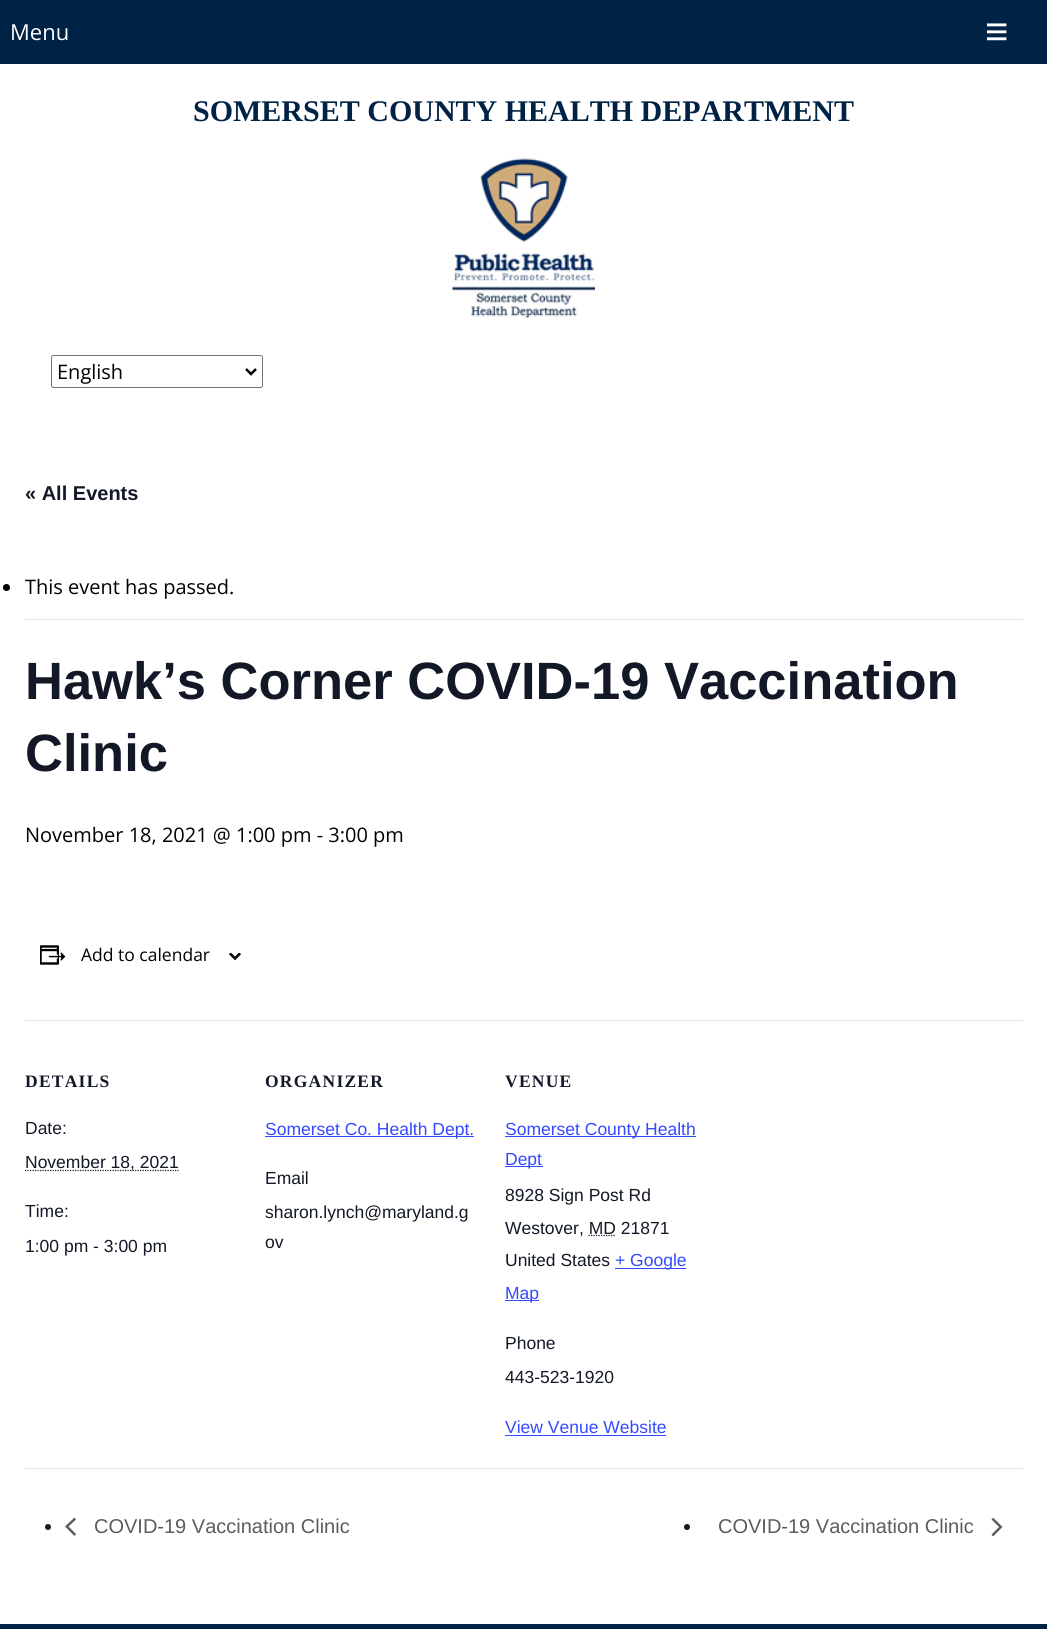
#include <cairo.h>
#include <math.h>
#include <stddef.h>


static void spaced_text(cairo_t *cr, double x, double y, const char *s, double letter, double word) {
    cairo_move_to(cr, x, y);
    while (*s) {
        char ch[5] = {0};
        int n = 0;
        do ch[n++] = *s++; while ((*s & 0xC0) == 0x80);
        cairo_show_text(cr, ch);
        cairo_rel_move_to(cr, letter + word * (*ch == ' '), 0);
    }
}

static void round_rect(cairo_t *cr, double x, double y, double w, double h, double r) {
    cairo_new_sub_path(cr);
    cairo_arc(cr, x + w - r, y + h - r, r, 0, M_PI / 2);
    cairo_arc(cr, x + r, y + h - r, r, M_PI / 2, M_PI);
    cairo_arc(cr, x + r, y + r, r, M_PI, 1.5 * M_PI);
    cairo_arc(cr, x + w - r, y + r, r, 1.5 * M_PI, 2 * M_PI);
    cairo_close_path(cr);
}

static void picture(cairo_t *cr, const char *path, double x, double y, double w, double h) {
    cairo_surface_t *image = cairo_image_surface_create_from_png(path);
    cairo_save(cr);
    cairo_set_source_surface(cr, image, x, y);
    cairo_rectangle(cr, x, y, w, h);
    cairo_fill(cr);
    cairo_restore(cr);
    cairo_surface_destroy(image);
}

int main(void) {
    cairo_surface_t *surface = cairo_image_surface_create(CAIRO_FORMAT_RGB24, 1047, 1629);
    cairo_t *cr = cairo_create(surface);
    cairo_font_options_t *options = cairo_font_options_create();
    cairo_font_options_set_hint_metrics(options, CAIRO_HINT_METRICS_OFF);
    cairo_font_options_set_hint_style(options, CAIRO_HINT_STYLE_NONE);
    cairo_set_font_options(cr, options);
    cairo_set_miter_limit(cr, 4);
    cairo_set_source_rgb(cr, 1, 1, 1);
    cairo_paint(cr);
    cairo_set_source_rgb(cr, 0, 0.133, 0.267);
    cairo_rectangle(cr, 0, 0, 1047, 64);
    cairo_fill(cr);
    cairo_select_font_face(cr, "Open Sans", CAIRO_FONT_SLANT_NORMAL, CAIRO_FONT_WEIGHT_NORMAL);
    cairo_set_font_size(cr, 22);
    cairo_set_source_rgb(cr, 1, 1, 1);
    cairo_move_to(cr, 10, 40);
    cairo_show_text(cr, "Menu");
    cairo_select_font_face(cr, "Liberation Sans", CAIRO_FONT_SLANT_NORMAL, CAIRO_FONT_WEIGHT_NORMAL);
    cairo_set_font_size(cr, 40);
    cairo_move_to(cr, 985, 45);
    cairo_show_text(cr, "≡");
    cairo_select_font_face(cr, "Liberation Serif", CAIRO_FONT_SLANT_NORMAL, CAIRO_FONT_WEIGHT_BOLD);
    cairo_set_font_size(cr, 30);
    cairo_set_source_rgb(cr, 0, 0.133, 0.267);
    cairo_move_to(cr, 193, 121);
    cairo_show_text(cr, "SOMERSET COUNTY HEALTH DEPARTMENT");
    picture(cr, "img1.png", 452, 158, 143, 160);
    round_rect(cr, 51.5, 355.5, 211, 32, 2);
    cairo_set_source_rgb(cr, 0.463, 0.463, 0.463);
    cairo_set_line_width(cr, 1);
    cairo_stroke(cr);
    cairo_new_path(cr);
    cairo_move_to(cr, 246, 369);
    cairo_line_to(cr, 251, 374);
    cairo_line_to(cr, 256, 369);
    cairo_set_source_rgb(cr, 0.004, 0.004, 0.004);
    cairo_set_line_width(cr, 2.5);
    cairo_stroke(cr);
    cairo_select_font_face(cr, "Open Sans", CAIRO_FONT_SLANT_NORMAL, CAIRO_FONT_WEIGHT_NORMAL);
    cairo_set_font_size(cr, 20);
    cairo_move_to(cr, 57, 379);
    cairo_show_text(cr, "English");
    cairo_select_font_face(cr, "Liberation Sans", CAIRO_FONT_SLANT_NORMAL, CAIRO_FONT_WEIGHT_BOLD);
    cairo_set_source_rgb(cr, 0.078, 0.094, 0.153);
    cairo_move_to(cr, 25, 500);
    cairo_show_text(cr, "« All Events");
    cairo_set_source_rgb(cr, 0.894, 0.894, 0.894);
    cairo_rectangle(cr, 25, 619, 998, 1);
    cairo_fill(cr);
    cairo_set_source_rgb(cr, 0.004, 0.004, 0.004);
    cairo_arc(cr, 6.5, 587.5, 3.5, 0, 2 * M_PI);
    cairo_fill(cr);
    cairo_select_font_face(cr, "Open Sans", CAIRO_FONT_SLANT_NORMAL, CAIRO_FONT_WEIGHT_NORMAL);
    cairo_move_to(cr, 25, 594);
    cairo_show_text(cr, "This event has passed.");
    cairo_select_font_face(cr, "Liberation Sans", CAIRO_FONT_SLANT_NORMAL, CAIRO_FONT_WEIGHT_BOLD);
    cairo_set_font_size(cr, 52.5);
    cairo_set_source_rgb(cr, 0.078, 0.094, 0.153);
    cairo_move_to(cr, 25, 699);
    cairo_show_text(cr, "Hawk’s Corner COVID-19 Vaccination");
    cairo_move_to(cr, 25, 771);
    cairo_show_text(cr, "Clinic");
    cairo_select_font_face(cr, "Open Sans", CAIRO_FONT_SLANT_NORMAL, CAIRO_FONT_WEIGHT_NORMAL);
    cairo_set_font_size(cr, 20);
    cairo_set_source_rgb(cr, 0.004, 0.004, 0.004);
    cairo_move_to(cr, 25, 842);
    cairo_show_text(cr, "November 18, 2021 @ 1:00 pm - 3:00 pm");
    picture(cr, "img2.png", 40, 945, 26, 20);
    cairo_set_font_size(cr, 17.5);
    cairo_move_to(cr, 81, 961);
    cairo_show_text(cr, "Add to calendar");
    picture(cr, "img3.png", 229, 953, 12, 7);
    cairo_set_source_rgb(cr, 0.894, 0.894, 0.894);
    cairo_rectangle(cr, 25, 1020, 998, 1);
    cairo_fill(cr);
    cairo_select_font_face(cr, "Liberation Serif", CAIRO_FONT_SLANT_NORMAL, CAIRO_FONT_WEIGHT_BOLD);
    cairo_set_source_rgb(cr, 0.078, 0.094, 0.153);
    spaced_text(cr, 25, 1087, "DETAILS", 1.25, 0);
    cairo_select_font_face(cr, "Liberation Sans", CAIRO_FONT_SLANT_NORMAL, CAIRO_FONT_WEIGHT_NORMAL);
    cairo_move_to(cr, 25, 1134);
    cairo_show_text(cr, "Date:");
    cairo_new_path(cr);
    cairo_move_to(cr, 25, 1170.5);
    cairo_line_to(cr, 178.5, 1170.5);
    cairo_set_line_width(cr, 1.2);
    cairo_set_dash(cr, (double[]){1.25, 1.25}, 2, 0);
    cairo_stroke(cr);
    cairo_move_to(cr, 25, 1168);
    cairo_show_text(cr, "November 18, 2021");
    cairo_move_to(cr, 25, 1217);
    cairo_show_text(cr, "Time:");
    cairo_move_to(cr, 25, 1252);
    cairo_show_text(cr, "1:00 pm - 3:00 pm");
    cairo_select_font_face(cr, "Liberation Serif", CAIRO_FONT_SLANT_NORMAL, CAIRO_FONT_WEIGHT_BOLD);
    spaced_text(cr, 265, 1087, "ORGANIZER", 1.25, 0);
    cairo_set_source_rgb(cr, 0.2, 0.29, 1);
    cairo_rectangle(cr, 265, 1136, 209, 1);
    cairo_fill(cr);
    cairo_select_font_face(cr, "Liberation Sans", CAIRO_FONT_SLANT_NORMAL, CAIRO_FONT_WEIGHT_NORMAL);
    cairo_move_to(cr, 265, 1135);
    cairo_show_text(cr, "Somerset Co. Health Dept.");
    cairo_set_source_rgb(cr, 0.078, 0.094, 0.153);
    cairo_move_to(cr, 265, 1184);
    cairo_show_text(cr, "Email");
    cairo_move_to(cr, 265, 1218);
    cairo_show_text(cr, "sharon.lynch@maryland.g");
    cairo_move_to(cr, 265, 1248);
    cairo_show_text(cr, "ov");
    cairo_select_font_face(cr, "Liberation Serif", CAIRO_FONT_SLANT_NORMAL, CAIRO_FONT_WEIGHT_BOLD);
    spaced_text(cr, 505, 1087, "VENUE", 1.25, 0);
    cairo_set_source_rgb(cr, 0.2, 0.29, 1);
    cairo_rectangle(cr, 505, 1136, 191, 1);
    cairo_fill(cr);
    cairo_select_font_face(cr, "Liberation Sans", CAIRO_FONT_SLANT_NORMAL, CAIRO_FONT_WEIGHT_NORMAL);
    cairo_move_to(cr, 505, 1135);
    cairo_show_text(cr, "Somerset County Health");
    cairo_rectangle(cr, 505, 1166, 38, 1);
    cairo_fill(cr);
    cairo_move_to(cr, 505, 1165);
    cairo_show_text(cr, "Dept");
    cairo_set_source_rgb(cr, 0.078, 0.094, 0.153);
    cairo_move_to(cr, 505, 1201);
    cairo_show_text(cr, "8928 Sign Post Rd");
    cairo_move_to(cr, 505, 1234);
    cairo_show_text(cr, "Westover, MD 21871");
    cairo_new_path(cr);
    cairo_move_to(cr, 588.5, 1235.5);
    cairo_line_to(cr, 616, 1235.5);
    cairo_stroke(cr);
    cairo_move_to(cr, 505, 1266);
    cairo_show_text(cr, "United States");
    cairo_set_source_rgb(cr, 0.2, 0.29, 1);
    cairo_rectangle(cr, 615, 1268, 71, 1);
    cairo_fill(cr);
    cairo_move_to(cr, 615, 1266);
    cairo_show_text(cr, "+ Google");
    cairo_rectangle(cr, 505, 1300, 34, 1);
    cairo_fill(cr);
    cairo_move_to(cr, 505, 1299);
    cairo_show_text(cr, "Map");
    cairo_set_source_rgb(cr, 0.078, 0.094, 0.153);
    cairo_move_to(cr, 505, 1349);
    cairo_show_text(cr, "Phone");
    cairo_move_to(cr, 505, 1383);
    cairo_show_text(cr, "443-523-1920");
    cairo_set_source_rgb(cr, 0.2, 0.29, 1);
    cairo_move_to(cr, 505, 1433);
    cairo_show_text(cr, "View Venue Website");
    cairo_rectangle(cr, 505, 1435, 161, 1);
    cairo_fill(cr);
    cairo_set_source_rgb(cr, 0.894, 0.894, 0.894);
    cairo_rectangle(cr, 25, 1468, 998, 1);
    cairo_fill(cr);
    cairo_set_source_rgb(cr, 0.078, 0.094, 0.153);
    cairo_arc(cr, 48, 1527, 3, 0, 2 * M_PI);
    cairo_fill(cr);
    cairo_set_source_rgb(cr, 0.365, 0.365, 0.365);
    cairo_new_path(cr);
    cairo_move_to(cr, 76, 1534);
    cairo_line_to(cr, 74.5, 1536);
    cairo_line_to(cr, 65, 1526.5);
    cairo_line_to(cr, 74.5, 1517.5);
    cairo_line_to(cr, 76, 1519.5);
    cairo_line_to(cr, 68.5, 1526.5);
    cairo_close_path(cr);
    cairo_fill(cr);
    cairo_set_font_size(cr, 20);
    cairo_move_to(cr, 94, 1533);
    cairo_show_text(cr, "COVID-19 Vaccination Clinic");
    cairo_set_source_rgb(cr, 0.078, 0.094, 0.153);
    cairo_new_path(cr);
    cairo_arc(cr, 687, 1527, 3, 0, 2 * M_PI);
    cairo_fill(cr);
    cairo_set_source_rgb(cr, 0.365, 0.365, 0.365);
    cairo_move_to(cr, 718, 1533);
    cairo_show_text(cr, "COVID-19 Vaccination Clinic");
    cairo_save(cr);
    cairo_rectangle(cr, 991, 1518, 12, 18);
    cairo_clip(cr);
    cairo_new_path(cr);
    cairo_move_to(cr, 991.5, 1519.5);
    cairo_line_to(cr, 993, 1517.5);
    cairo_line_to(cr, 1002.5, 1527);
    cairo_line_to(cr, 993, 1536.5);
    cairo_line_to(cr, 991.5, 1534.5);
    cairo_line_to(cr, 999, 1527);
    cairo_close_path(cr);
    cairo_fill(cr);
    cairo_restore(cr);
    cairo_set_source_rgb(cr, 0, 0.133, 0.267);
    cairo_rectangle(cr, 0, 1624, 1047, 5);
    cairo_fill(cr);
    cairo_surface_write_to_png(surface, "page.png");
    cairo_font_options_destroy(options);
    cairo_destroy(cr);
    cairo_surface_destroy(surface);
    return 0;
}
